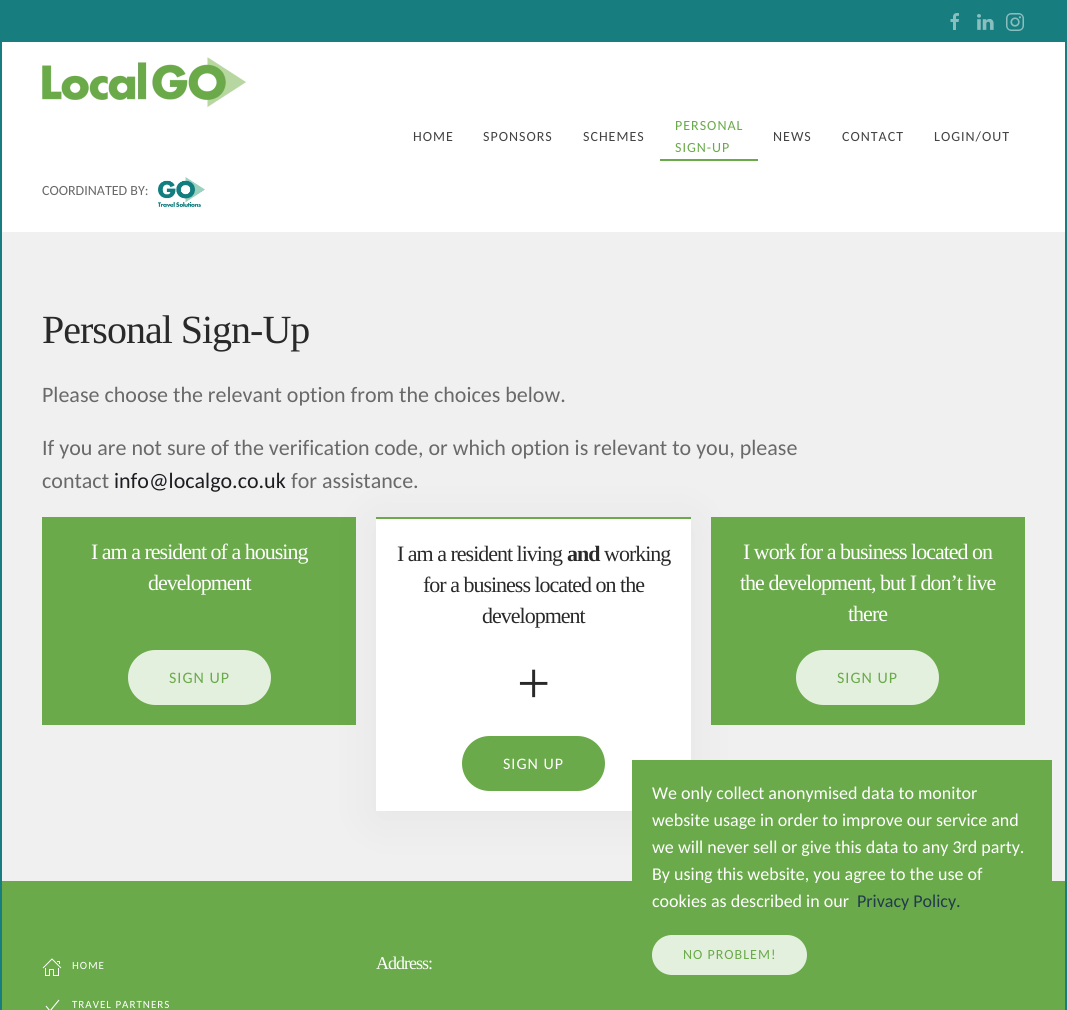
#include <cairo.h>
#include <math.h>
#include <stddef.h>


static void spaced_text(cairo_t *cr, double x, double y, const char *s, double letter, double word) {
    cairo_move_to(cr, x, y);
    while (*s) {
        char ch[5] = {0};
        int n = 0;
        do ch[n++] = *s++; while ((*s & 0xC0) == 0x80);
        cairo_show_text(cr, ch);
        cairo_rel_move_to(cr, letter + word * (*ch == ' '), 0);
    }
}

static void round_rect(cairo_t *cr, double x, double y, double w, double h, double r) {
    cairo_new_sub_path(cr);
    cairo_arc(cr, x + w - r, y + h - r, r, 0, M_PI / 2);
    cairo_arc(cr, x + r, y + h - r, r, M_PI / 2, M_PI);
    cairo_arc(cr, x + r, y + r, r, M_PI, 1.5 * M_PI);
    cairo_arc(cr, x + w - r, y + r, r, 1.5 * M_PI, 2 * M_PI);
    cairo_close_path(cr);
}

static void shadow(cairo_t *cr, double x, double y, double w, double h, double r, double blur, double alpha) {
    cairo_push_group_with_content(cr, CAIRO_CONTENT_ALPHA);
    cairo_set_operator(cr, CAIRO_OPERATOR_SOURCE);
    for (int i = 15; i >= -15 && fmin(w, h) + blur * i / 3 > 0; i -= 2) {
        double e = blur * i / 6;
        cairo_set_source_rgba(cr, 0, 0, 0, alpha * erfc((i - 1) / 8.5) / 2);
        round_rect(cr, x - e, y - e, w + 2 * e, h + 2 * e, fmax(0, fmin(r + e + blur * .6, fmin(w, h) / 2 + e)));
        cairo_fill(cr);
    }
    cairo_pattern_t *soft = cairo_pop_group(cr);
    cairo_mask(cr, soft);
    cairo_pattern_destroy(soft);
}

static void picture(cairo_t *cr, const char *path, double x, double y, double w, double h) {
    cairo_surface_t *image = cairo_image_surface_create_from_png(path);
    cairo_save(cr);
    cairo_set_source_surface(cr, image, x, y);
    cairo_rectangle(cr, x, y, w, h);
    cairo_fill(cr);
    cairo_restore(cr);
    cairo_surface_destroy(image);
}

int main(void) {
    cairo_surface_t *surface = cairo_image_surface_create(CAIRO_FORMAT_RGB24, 1067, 1010);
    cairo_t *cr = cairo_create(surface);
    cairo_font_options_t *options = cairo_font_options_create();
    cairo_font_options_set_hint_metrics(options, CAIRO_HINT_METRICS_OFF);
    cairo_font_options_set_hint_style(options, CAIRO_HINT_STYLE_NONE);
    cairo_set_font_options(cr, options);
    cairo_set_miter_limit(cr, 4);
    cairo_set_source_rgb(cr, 1, 1, 1);
    cairo_paint(cr);
    cairo_rectangle(cr, 1, 1, 1065, 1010);
    cairo_set_source_rgb(cr, 0.09, 0.49, 0.498);
    cairo_stroke(cr);
    cairo_rectangle(cr, 2, 2, 1063, 40);
    cairo_fill(cr);
    picture(cr, "img1.png", 950, 13, 9, 17);
    picture(cr, "img2.png", 977, 14, 17, 16);
    picture(cr, "img3.png", 1006, 13, 18, 18);
    cairo_select_font_face(cr, "Carlito", CAIRO_FONT_SLANT_NORMAL, CAIRO_FONT_WEIGHT_NORMAL);
    cairo_set_font_size(cr, 14);
    cairo_set_source_rgb(cr, 0.263, 0.263, 0.263);
    spaced_text(cr, 413, 141, "HOME", 1, 0);
    spaced_text(cr, 483, 141, "SPONSORS", 1, 0);
    spaced_text(cr, 583, 141, "SCHEMES", 1, 0);
    cairo_set_source_rgb(cr, 0.416, 0.667, 0.29);
    spaced_text(cr, 675, 130, "PERSONAL", 1, 0);
    spaced_text(cr, 675, 152, "SIGN-UP", 1, 0);
    cairo_rectangle(cr, 660, 159, 98, 2);
    cairo_fill(cr);
    cairo_set_source_rgb(cr, 0.263, 0.263, 0.263);
    spaced_text(cr, 773, 141, "NEWS", 1, 0);
    spaced_text(cr, 842, 141, "CONTACT", 1, 0);
    spaced_text(cr, 934, 141, "LOGIN/OUT", 1, 0);
    picture(cr, "img4.png", 42, 57, 204, 50);
    cairo_set_source_rgb(cr, 0.412, 0.412, 0.412);
    cairo_move_to(cr, 42, 195);
    cairo_show_text(cr, "COORDINATED BY:");
    picture(cr, "img5.png", 158, 177, 47, 30);
    cairo_set_source_rgb(cr, 0.941, 0.941, 0.941);
    cairo_rectangle(cr, 2, 232, 1063, 649);
    cairo_fill(cr);
    cairo_select_font_face(cr, "Liberation Serif", CAIRO_FONT_SLANT_NORMAL, CAIRO_FONT_WEIGHT_NORMAL);
    cairo_set_font_size(cr, 40);
    cairo_set_source_rgb(cr, 0.161, 0.161, 0.161);
    spaced_text(cr, 42, 343, "Personal Sign-Up", -1, 0);
    cairo_select_font_face(cr, "Carlito", CAIRO_FONT_SLANT_NORMAL, CAIRO_FONT_WEIGHT_NORMAL);
    cairo_set_font_size(cr, 22);
    cairo_set_source_rgb(cr, 0.412, 0.412, 0.412);
    cairo_move_to(cr, 42, 402);
    cairo_show_text(cr, "Please choose the relevant option from the choices below.");
    cairo_move_to(cr, 42, 455);
    cairo_show_text(cr, "If you are not sure of the verification code, or which option is relevant to you, please");
    cairo_move_to(cr, 42, 488);
    cairo_show_text(cr, "contact");
    cairo_set_source_rgb(cr, 0.114, 0.11, 0.129);
    cairo_move_to(cr, 114, 488);
    cairo_show_text(cr, "info@localgo.co.uk");
    cairo_set_source_rgb(cr, 0.412, 0.412, 0.412);
    cairo_move_to(cr, 291, 488);
    cairo_show_text(cr, "for assistance.");
    cairo_set_source_rgb(cr, 0.416, 0.667, 0.29);
    cairo_rectangle(cr, 42, 517, 314, 208);
    cairo_fill(cr);
    cairo_select_font_face(cr, "Liberation Serif", CAIRO_FONT_SLANT_NORMAL, CAIRO_FONT_WEIGHT_NORMAL);
    cairo_set_source_rgb(cr, 1, 1, 1);
    spaced_text(cr, 91, 559, "I am a resident of a housing", -1, 0);
    spaced_text(cr, 148, 590, "development", -1, 0);
    cairo_set_source_rgb(cr, 0.894, 0.941, 0.871);
    round_rect(cr, 128, 650, 143, 55, 27.5);
    cairo_fill(cr);
    cairo_select_font_face(cr, "Carlito", CAIRO_FONT_SLANT_NORMAL, CAIRO_FONT_WEIGHT_NORMAL);
    cairo_set_font_size(cr, 16);
    cairo_set_source_rgb(cr, 0.416, 0.667, 0.29);
    spaced_text(cr, 169, 683, "SIGN UP", 1, 0);
    cairo_rectangle(cr, 2, 881, 1063, 129);
    cairo_fill(cr);
    cairo_set_source_rgb(cr, 0, 0, 0);
    shadow(cr, 376, 523, 315, 294, 0, 25, 0.05);
    cairo_set_source_rgb(cr, 1, 1, 1);
    cairo_rectangle(cr, 376, 519, 315, 292);
    cairo_fill(cr);
    cairo_set_source_rgb(cr, 0.416, 0.667, 0.29);
    cairo_rectangle(cr, 376, 517, 315, 2);
    cairo_fill(cr);
    cairo_select_font_face(cr, "Liberation Serif", CAIRO_FONT_SLANT_NORMAL, CAIRO_FONT_WEIGHT_NORMAL);
    cairo_set_font_size(cr, 22);
    cairo_set_source_rgb(cr, 0.161, 0.161, 0.161);
    spaced_text(cr, 397, 561, "I am a resident living", -1, 0);
    cairo_select_font_face(cr, "Liberation Serif", CAIRO_FONT_SLANT_NORMAL, CAIRO_FONT_WEIGHT_BOLD);
    spaced_text(cr, 567, 561, "and", -1, 0);
    cairo_select_font_face(cr, "Liberation Serif", CAIRO_FONT_SLANT_NORMAL, CAIRO_FONT_WEIGHT_NORMAL);
    spaced_text(cr, 604, 561, "working", -1, 0);
    spaced_text(cr, 423, 592, "for a business located on the", -1, 0);
    spaced_text(cr, 482, 623, "development", -1, 0);
    cairo_set_font_size(cr, 59);
    spaced_text(cr, 517, 703, "+", -1, 0);
    cairo_set_source_rgb(cr, 0.416, 0.667, 0.29);
    round_rect(cr, 462, 736, 143, 55, 27.5);
    cairo_fill(cr);
    cairo_select_font_face(cr, "Carlito", CAIRO_FONT_SLANT_NORMAL, CAIRO_FONT_WEIGHT_NORMAL);
    cairo_set_font_size(cr, 16);
    cairo_set_source_rgb(cr, 1, 1, 1);
    spaced_text(cr, 503, 769, "SIGN UP", 1, 0);
    cairo_set_source_rgb(cr, 0.416, 0.667, 0.29);
    cairo_rectangle(cr, 711, 517, 314, 208);
    cairo_fill(cr);
    cairo_select_font_face(cr, "Liberation Serif", CAIRO_FONT_SLANT_NORMAL, CAIRO_FONT_WEIGHT_NORMAL);
    cairo_set_font_size(cr, 22);
    cairo_set_source_rgb(cr, 1, 1, 1);
    spaced_text(cr, 743, 559, "I work for a business located on", -1, 0);
    spaced_text(cr, 740, 590, "the development, but I don’t live", -1, 0);
    spaced_text(cr, 848, 621, "there", -1, 0);
    cairo_set_source_rgb(cr, 0.894, 0.941, 0.871);
    round_rect(cr, 796, 650, 143, 55, 27.5);
    cairo_fill(cr);
    cairo_select_font_face(cr, "Carlito", CAIRO_FONT_SLANT_NORMAL, CAIRO_FONT_WEIGHT_NORMAL);
    cairo_set_font_size(cr, 16);
    cairo_set_source_rgb(cr, 0.416, 0.667, 0.29);
    spaced_text(cr, 837, 683, "SIGN UP", 1, 0);
    picture(cr, "img6.png", 42, 958, 20, 18);
    cairo_set_font_size(cr, 11);
    cairo_set_source_rgb(cr, 1, 1, 1);
    spaced_text(cr, 72, 969, "HOME", 1, 0);
    cairo_new_path(cr);
    cairo_move_to(cr, 46, 1006);
    cairo_line_to(cr, 50, 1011);
    cairo_line_to(cr, 59, 1000);
    cairo_set_line_width(cr, 1.1);
    cairo_stroke(cr);
    spaced_text(cr, 72, 1008, "TRAVEL PARTNERS", 1, 0);
    cairo_select_font_face(cr, "Liberation Serif", CAIRO_FONT_SLANT_NORMAL, CAIRO_FONT_WEIGHT_NORMAL);
    cairo_set_font_size(cr, 18);
    spaced_text(cr, 376, 969, "Address:", -1, 0);
    cairo_set_source_rgb(cr, 0.416, 0.667, 0.29);
    cairo_rectangle(cr, 632, 760, 420, 121);
    cairo_fill(cr);
    cairo_select_font_face(cr, "Carlito", CAIRO_FONT_SLANT_NORMAL, CAIRO_FONT_WEIGHT_NORMAL);
    cairo_set_source_rgb(cr, 1, 1, 1);
    cairo_move_to(cr, 652, 799);
    cairo_show_text(cr, "We only collect anonymised data to monitor");
    cairo_move_to(cr, 652, 826);
    cairo_show_text(cr, "website usage in order to improve our service and");
    cairo_move_to(cr, 652, 853);
    cairo_show_text(cr, "we will never sell or give this data to any 3rd party.");
    cairo_move_to(cr, 652, 880);
    cairo_show_text(cr, "By using this website, you agree to the use of");
    cairo_move_to(cr, 652, 907);
    cairo_show_text(cr, "cookies as described in our");
    cairo_set_source_rgb(cr, 0.129, 0.227, 0.306);
    cairo_move_to(cr, 857, 907);
    cairo_show_text(cr, "Privacy Policy.");
    cairo_set_source_rgb(cr, 0.894, 0.941, 0.871);
    round_rect(cr, 652, 935, 155, 40, 20);
    cairo_fill(cr);
    cairo_set_font_size(cr, 14);
    cairo_set_source_rgb(cr, 0.416, 0.667, 0.29);
    spaced_text(cr, 683, 959, "NO PROBLEM!", 1, 0);
    cairo_surface_write_to_png(surface, "page.png");
    cairo_font_options_destroy(options);
    cairo_destroy(cr);
    cairo_surface_destroy(surface);
    return 0;
}
